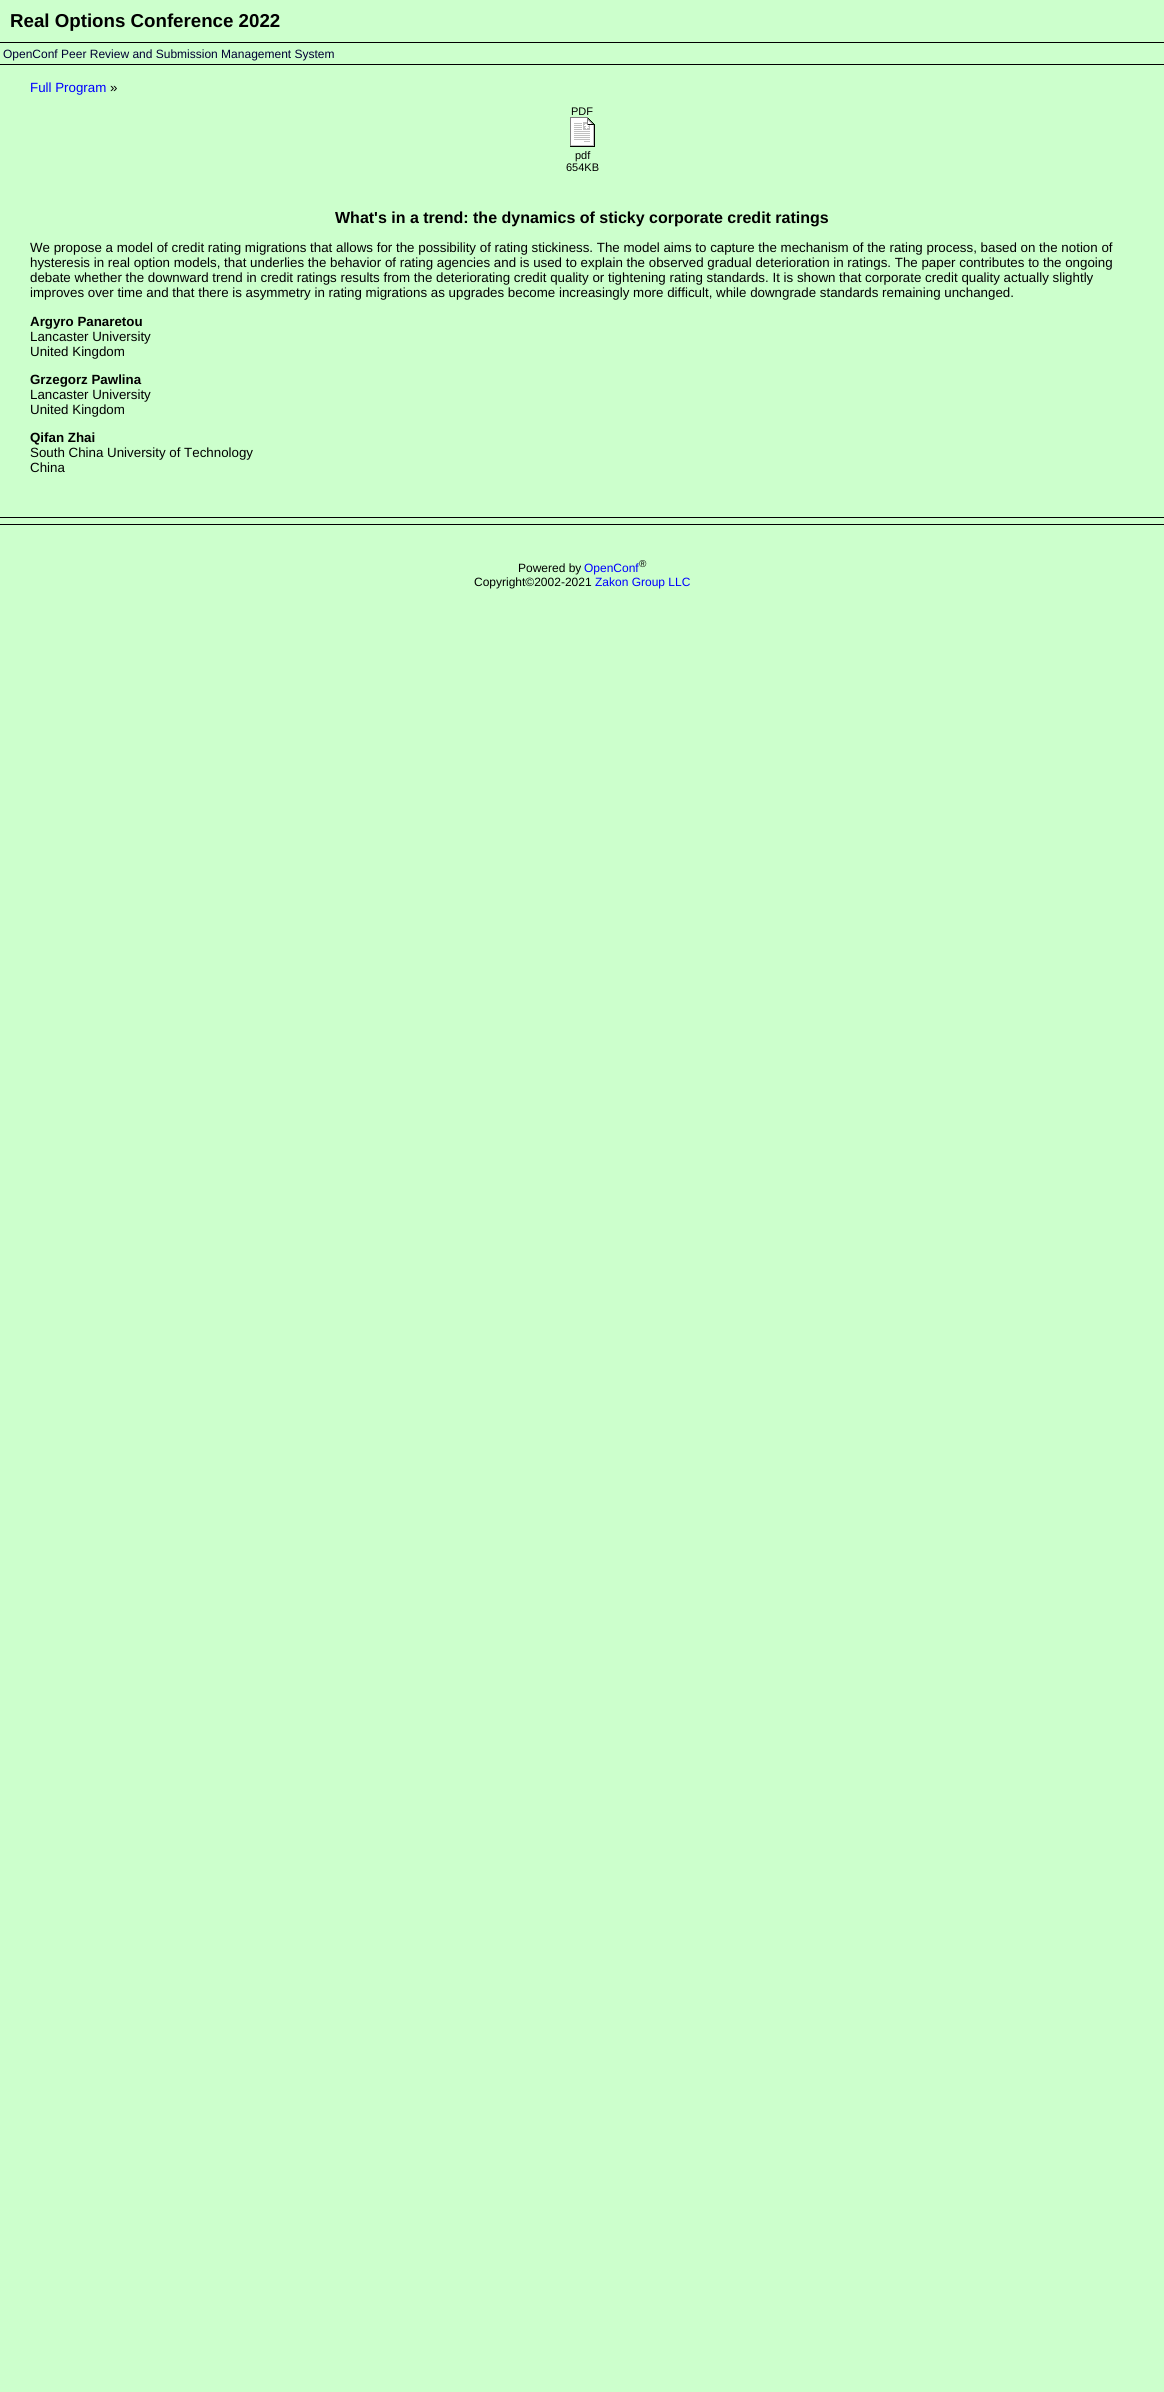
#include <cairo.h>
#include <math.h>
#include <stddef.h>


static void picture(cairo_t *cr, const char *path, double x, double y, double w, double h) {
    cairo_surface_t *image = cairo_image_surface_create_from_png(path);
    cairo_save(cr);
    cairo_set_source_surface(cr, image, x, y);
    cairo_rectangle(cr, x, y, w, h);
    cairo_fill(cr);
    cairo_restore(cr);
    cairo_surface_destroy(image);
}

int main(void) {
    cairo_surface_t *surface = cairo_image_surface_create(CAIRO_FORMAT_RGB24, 1164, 2392);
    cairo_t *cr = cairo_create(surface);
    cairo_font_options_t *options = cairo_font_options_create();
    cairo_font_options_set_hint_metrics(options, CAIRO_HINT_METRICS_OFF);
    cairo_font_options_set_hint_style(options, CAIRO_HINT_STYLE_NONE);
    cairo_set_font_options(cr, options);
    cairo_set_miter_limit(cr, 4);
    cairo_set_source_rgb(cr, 0.8, 1, 0.8);
    cairo_paint(cr);
    cairo_select_font_face(cr, "Liberation Sans", CAIRO_FONT_SLANT_NORMAL, CAIRO_FONT_WEIGHT_BOLD);
    cairo_set_font_size(cr, 18.7);
    cairo_set_source_rgb(cr, 0, 0, 0);
    cairo_move_to(cr, 10, 27);
    cairo_show_text(cr, "Real Options Conference 2022");
    cairo_rectangle(cr, 0, 42, 1164, 1);
    cairo_fill(cr);
    cairo_rectangle(cr, 0, 64, 1164, 1);
    cairo_fill(cr);
    cairo_select_font_face(cr, "Liberation Sans", CAIRO_FONT_SLANT_NORMAL, CAIRO_FONT_WEIGHT_NORMAL);
    cairo_set_font_size(cr, 12);
    cairo_set_source_rgb(cr, 0, 0, 0.2);
    cairo_move_to(cr, 3, 58);
    cairo_show_text(cr, "OpenConf Peer Review and Submission Management System");
    cairo_set_font_size(cr, 13.33);
    cairo_set_source_rgb(cr, 0, 0, 1);
    cairo_move_to(cr, 30, 92);
    cairo_show_text(cr, "Full Program");
    cairo_set_source_rgb(cr, 0, 0, 0);
    cairo_move_to(cr, 110, 92);
    cairo_show_text(cr, "»");
    cairo_set_font_size(cr, 11);
    cairo_move_to(cr, 571, 115);
    cairo_show_text(cr, "PDF");
    picture(cr, "img1.png", 570, 117, 25, 30);
    cairo_move_to(cr, 575, 159);
    cairo_show_text(cr, "pdf");
    cairo_move_to(cr, 566, 171);
    cairo_show_text(cr, "654KB");
    cairo_select_font_face(cr, "Liberation Sans", CAIRO_FONT_SLANT_NORMAL, CAIRO_FONT_WEIGHT_BOLD);
    cairo_set_font_size(cr, 16);
    cairo_move_to(cr, 335, 223);
    cairo_show_text(cr, "What's in a trend: the dynamics of sticky corporate credit ratings");
    cairo_select_font_face(cr, "Liberation Sans", CAIRO_FONT_SLANT_NORMAL, CAIRO_FONT_WEIGHT_NORMAL);
    cairo_set_font_size(cr, 13.33);
    cairo_move_to(cr, 30, 252);
    cairo_show_text(cr, "We propose a model of credit rating migrations that allows for the possibility of rating stickiness. The model aims to capture the mechanism of the rating process, based on the notion of");
    cairo_move_to(cr, 30, 267);
    cairo_show_text(cr, "hysteresis in real option models, that underlies the behavior of rating agencies and is used to explain the observed gradual deterioration in ratings. The paper contributes to the ongoing");
    cairo_move_to(cr, 30, 282);
    cairo_show_text(cr, "debate whether the downward trend in credit ratings results from the deteriorating credit quality or tightening rating standards. It is shown that corporate credit quality actually slightly");
    cairo_move_to(cr, 30, 297);
    cairo_show_text(cr, "improves over time and that there is asymmetry in rating migrations as upgrades become increasingly more difficult, while downgrade standards remaining unchanged.");
    cairo_select_font_face(cr, "Liberation Sans", CAIRO_FONT_SLANT_NORMAL, CAIRO_FONT_WEIGHT_BOLD);
    cairo_move_to(cr, 30, 326);
    cairo_show_text(cr, "Argyro Panaretou");
    cairo_select_font_face(cr, "Liberation Sans", CAIRO_FONT_SLANT_NORMAL, CAIRO_FONT_WEIGHT_NORMAL);
    cairo_move_to(cr, 30, 341);
    cairo_show_text(cr, "Lancaster University");
    cairo_move_to(cr, 30, 356);
    cairo_show_text(cr, "United Kingdom");
    cairo_select_font_face(cr, "Liberation Sans", CAIRO_FONT_SLANT_NORMAL, CAIRO_FONT_WEIGHT_BOLD);
    cairo_move_to(cr, 30, 384);
    cairo_show_text(cr, "Grzegorz Pawlina");
    cairo_select_font_face(cr, "Liberation Sans", CAIRO_FONT_SLANT_NORMAL, CAIRO_FONT_WEIGHT_NORMAL);
    cairo_move_to(cr, 30, 399);
    cairo_show_text(cr, "Lancaster University");
    cairo_move_to(cr, 30, 414);
    cairo_show_text(cr, "United Kingdom");
    cairo_select_font_face(cr, "Liberation Sans", CAIRO_FONT_SLANT_NORMAL, CAIRO_FONT_WEIGHT_BOLD);
    cairo_move_to(cr, 30, 442);
    cairo_show_text(cr, "Qifan Zhai");
    cairo_select_font_face(cr, "Liberation Sans", CAIRO_FONT_SLANT_NORMAL, CAIRO_FONT_WEIGHT_NORMAL);
    cairo_move_to(cr, 30, 457);
    cairo_show_text(cr, "South China University of Technology");
    cairo_move_to(cr, 30, 472);
    cairo_show_text(cr, "China");
    cairo_rectangle(cr, 0, 517, 1164, 1);
    cairo_fill(cr);
    cairo_rectangle(cr, 0, 524, 1164, 1);
    cairo_fill(cr);
    cairo_set_font_size(cr, 12);
    cairo_move_to(cr, 518, 572);
    cairo_show_text(cr, "Powered by");
    cairo_set_source_rgb(cr, 0, 0, 1);
    cairo_move_to(cr, 584, 572);
    cairo_show_text(cr, "OpenConf");
    cairo_set_font_size(cr, 10);
    cairo_set_source_rgb(cr, 0, 0, 0);
    cairo_move_to(cr, 639, 567);
    cairo_show_text(cr, "®");
    cairo_set_font_size(cr, 12);
    cairo_move_to(cr, 474, 586);
    cairo_show_text(cr, "Copyright©2002-2021");
    cairo_set_source_rgb(cr, 0, 0, 1);
    cairo_move_to(cr, 595, 586);
    cairo_show_text(cr, "Zakon Group LLC");
    cairo_surface_write_to_png(surface, "page.png");
    cairo_font_options_destroy(options);
    cairo_destroy(cr);
    cairo_surface_destroy(surface);
    return 0;
}
